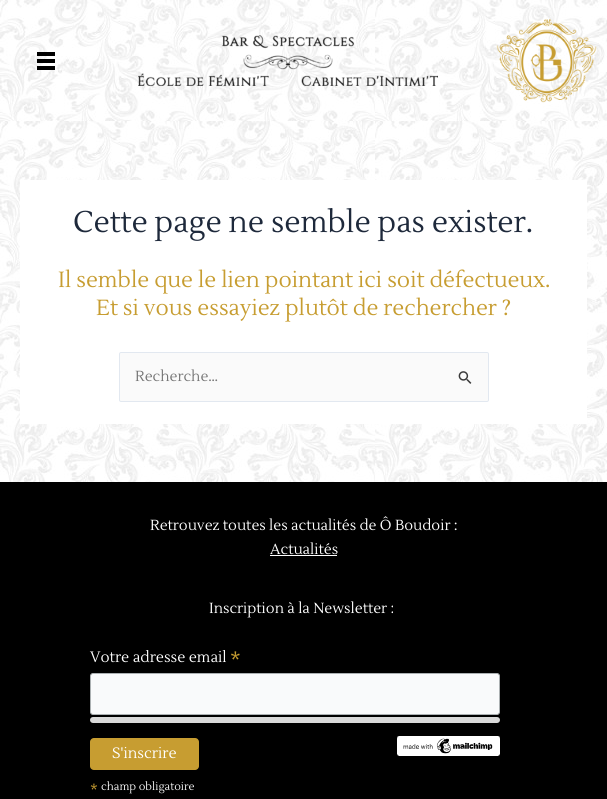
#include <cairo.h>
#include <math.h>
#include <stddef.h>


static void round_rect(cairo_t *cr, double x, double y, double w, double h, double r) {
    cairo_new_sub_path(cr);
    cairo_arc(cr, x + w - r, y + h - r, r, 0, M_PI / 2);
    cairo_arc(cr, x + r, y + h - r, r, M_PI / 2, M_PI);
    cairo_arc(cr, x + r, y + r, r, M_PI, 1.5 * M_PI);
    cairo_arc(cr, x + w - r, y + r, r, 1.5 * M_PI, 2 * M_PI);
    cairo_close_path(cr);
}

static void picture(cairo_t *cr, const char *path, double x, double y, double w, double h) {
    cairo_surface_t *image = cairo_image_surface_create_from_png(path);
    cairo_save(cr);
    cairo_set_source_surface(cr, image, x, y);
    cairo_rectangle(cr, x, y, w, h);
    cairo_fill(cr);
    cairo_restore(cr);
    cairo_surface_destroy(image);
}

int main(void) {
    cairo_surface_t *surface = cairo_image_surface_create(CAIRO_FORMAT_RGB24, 607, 799);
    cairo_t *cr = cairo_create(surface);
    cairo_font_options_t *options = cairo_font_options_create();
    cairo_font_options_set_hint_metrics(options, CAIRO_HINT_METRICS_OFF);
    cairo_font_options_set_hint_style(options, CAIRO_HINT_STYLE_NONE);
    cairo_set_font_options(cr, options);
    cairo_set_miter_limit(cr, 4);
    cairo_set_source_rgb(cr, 1, 1, 1);
    cairo_paint(cr);
    picture(cr, "img1.png", 0, 0, 607, 121);
    cairo_set_source_rgb(cr, 0, 0, 0);
    cairo_rectangle(cr, 37, 52, 18, 4);
    cairo_fill(cr);
    cairo_rectangle(cr, 37, 59, 18, 4);
    cairo_fill(cr);
    cairo_rectangle(cr, 37, 66, 18, 4);
    cairo_fill(cr);
    picture(cr, "img2.png", 138, 35, 300, 51);
    picture(cr, "img3.png", 496, 19, 101, 84);
    picture(cr, "img4.png", 0, 121, 607, 361);
    cairo_set_source_rgb(cr, 1, 1, 1);
    cairo_rectangle(cr, 20, 180, 567, 244);
    cairo_fill(cr);
    cairo_select_font_face(cr, "Lustria", CAIRO_FONT_SLANT_NORMAL, CAIRO_FONT_WEIGHT_NORMAL);
    cairo_set_font_size(cr, 30);
    cairo_set_source_rgb(cr, 0.118, 0.161, 0.231);
    cairo_move_to(cr, 73, 232);
    cairo_show_text(cr, "Cette page ne semble pas exister.");
    cairo_set_font_size(cr, 21.9);
    cairo_set_source_rgb(cr, 0.78, 0.616, 0.192);
    cairo_move_to(cr, 58, 287);
    cairo_show_text(cr, "Il semble que le lien pointant ici soit défectueux.");
    cairo_move_to(cr, 96, 315);
    cairo_show_text(cr, "Et si vous essayiez plutôt de rechercher ?");
    cairo_set_source_rgb(cr, 0.98, 0.98, 0.98);
    round_rect(cr, 119.5, 352.5, 369, 49, 1.5);
    cairo_fill_preserve(cr);
    cairo_set_source_rgb(cr, 0.886, 0.91, 0.941);
    cairo_set_line_width(cr, 1);
    cairo_stroke(cr);
    cairo_set_font_size(cr, 14.6);
    cairo_set_source_rgb(cr, 0.459, 0.459, 0.459);
    cairo_move_to(cr, 135, 381);
    cairo_show_text(cr, "Recherche…");
    picture(cr, "img5.png", 458, 371, 14, 13);
    cairo_set_source_rgb(cr, 0, 0, 0);
    cairo_rectangle(cr, 0, 482, 607, 317);
    cairo_fill(cr);
    cairo_set_source_rgb(cr, 1, 1, 1);
    cairo_move_to(cr, 150, 530);
    cairo_show_text(cr, "Retrouvez toutes les actualités de Ô Boudoir :");
    cairo_move_to(cr, 270, 554);
    cairo_show_text(cr, "Actualités");
    cairo_rectangle(cr, 270, 555, 67, 1);
    cairo_fill(cr);
    cairo_move_to(cr, 209, 613);
    cairo_show_text(cr, "Inscription à la Newsletter :");
    cairo_set_font_size(cr, 15);
    cairo_move_to(cr, 90, 662);
    cairo_show_text(cr, "Votre adresse email");
    cairo_set_font_size(cr, 22);
    cairo_set_source_rgb(cr, 0.78, 0.616, 0.192);
    cairo_move_to(cr, 230, 667);
    cairo_show_text(cr, "*");
    cairo_set_source_rgb(cr, 0.976, 0.98, 0.984);
    round_rect(cr, 90.5, 673.5, 409, 41, 2.5);
    cairo_fill_preserve(cr);
    cairo_set_source_rgb(cr, 0.671, 0.69, 0.698);
    cairo_stroke(cr);
    cairo_set_source_rgb(cr, 0.851, 0.851, 0.851);
    round_rect(cr, 90, 717, 410, 6, 3);
    cairo_fill(cr);
    cairo_set_source_rgb(cr, 0.78, 0.616, 0.192);
    round_rect(cr, 90, 738, 109, 32, 4);
    cairo_fill(cr);
    cairo_set_font_size(cr, 15);
    cairo_set_source_rgb(cr, 1, 1, 1);
    cairo_move_to(cr, 112, 758);
    cairo_show_text(cr, "S'inscrire");
    picture(cr, "img6.png", 397, 736, 103, 20);
    cairo_set_font_size(cr, 16);
    cairo_set_source_rgb(cr, 0.78, 0.616, 0.192);
    cairo_move_to(cr, 90, 795);
    cairo_show_text(cr, "*");
    cairo_set_font_size(cr, 11);
    cairo_set_source_rgb(cr, 1, 1, 1);
    cairo_move_to(cr, 101, 790);
    cairo_show_text(cr, "champ obligatoire");
    cairo_surface_write_to_png(surface, "page.png");
    cairo_font_options_destroy(options);
    cairo_destroy(cr);
    cairo_surface_destroy(surface);
    return 0;
}
